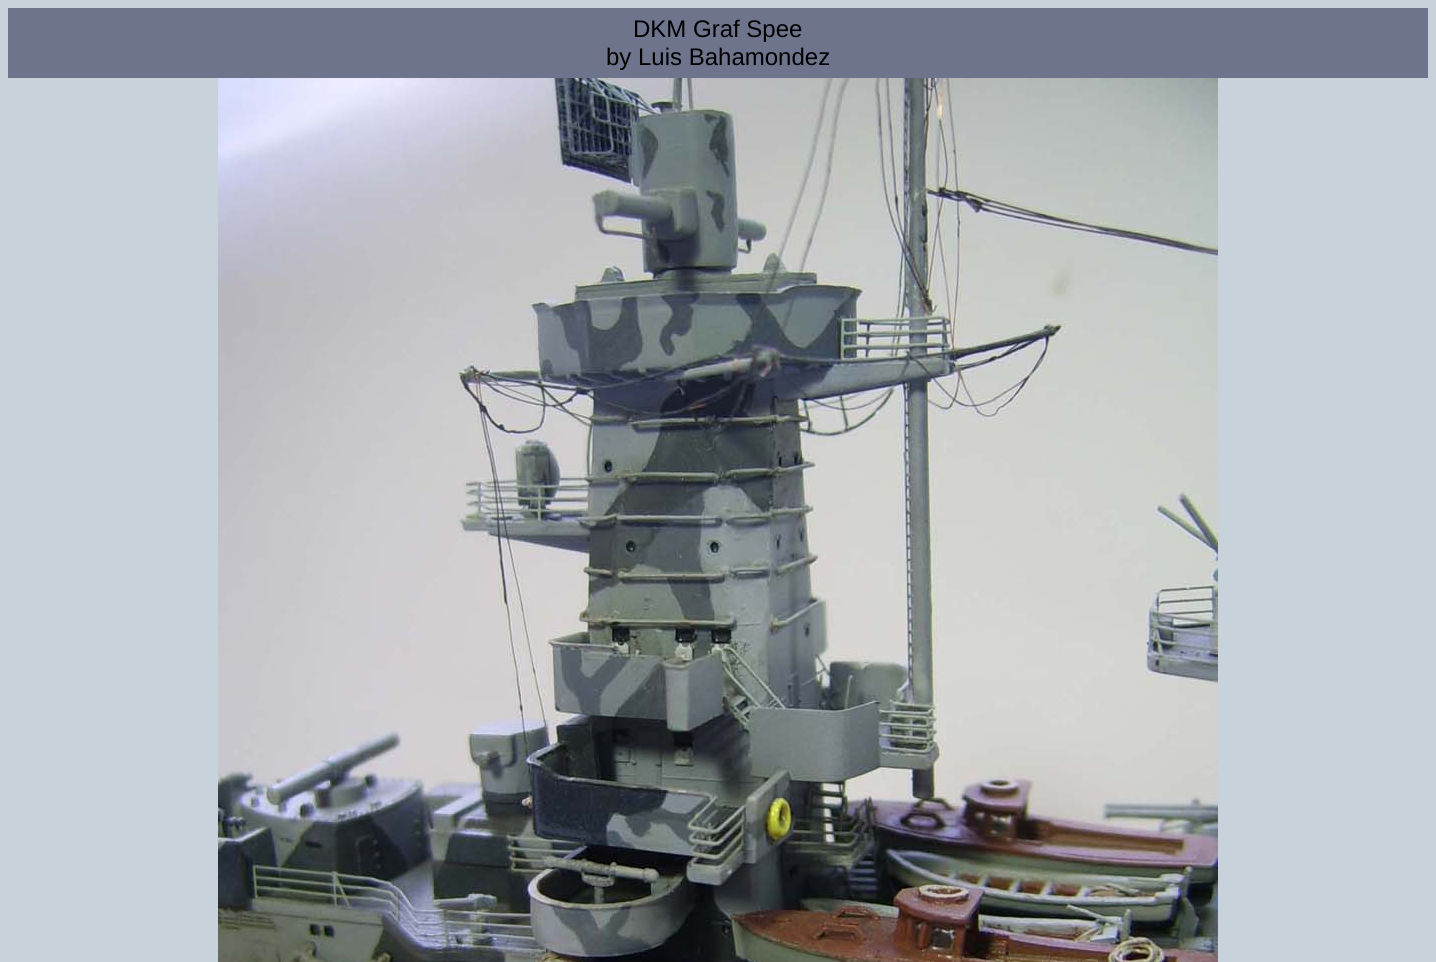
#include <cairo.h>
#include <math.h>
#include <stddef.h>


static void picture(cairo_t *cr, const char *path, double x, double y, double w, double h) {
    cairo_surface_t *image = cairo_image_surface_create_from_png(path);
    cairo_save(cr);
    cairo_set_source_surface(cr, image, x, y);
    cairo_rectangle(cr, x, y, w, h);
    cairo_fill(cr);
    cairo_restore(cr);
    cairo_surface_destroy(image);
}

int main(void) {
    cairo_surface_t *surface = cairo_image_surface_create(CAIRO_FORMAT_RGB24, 1436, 962);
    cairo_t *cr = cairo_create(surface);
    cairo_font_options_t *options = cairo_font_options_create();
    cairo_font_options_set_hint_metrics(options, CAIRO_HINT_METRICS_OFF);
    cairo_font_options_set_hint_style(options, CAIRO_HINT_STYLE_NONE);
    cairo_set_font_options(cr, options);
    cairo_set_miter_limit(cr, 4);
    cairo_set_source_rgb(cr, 0.784, 0.824, 0.859);
    cairo_paint(cr);
    cairo_set_source_rgb(cr, 0.427, 0.455, 0.549);
    cairo_rectangle(cr, 8, 8, 1420, 70);
    cairo_fill(cr);
    cairo_select_font_face(cr, "Liberation Sans", CAIRO_FONT_SLANT_NORMAL, CAIRO_FONT_WEIGHT_NORMAL);
    cairo_set_font_size(cr, 24);
    cairo_set_source_rgb(cr, 0, 0, 0);
    cairo_move_to(cr, 633, 37);
    cairo_show_text(cr, "DKM Graf Spee");
    cairo_move_to(cr, 606, 65);
    cairo_show_text(cr, "by Luis Bahamondez");
    picture(cr, "img1.png", 218, 78, 1000, 884);
    cairo_surface_write_to_png(surface, "page.png");
    cairo_font_options_destroy(options);
    cairo_destroy(cr);
    cairo_surface_destroy(surface);
    return 0;
}
